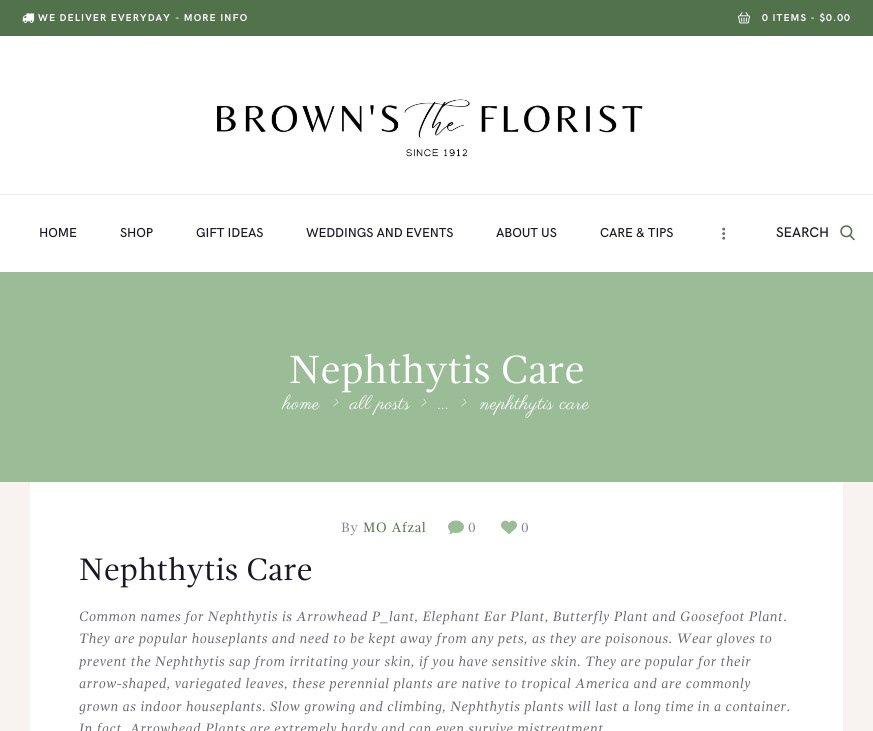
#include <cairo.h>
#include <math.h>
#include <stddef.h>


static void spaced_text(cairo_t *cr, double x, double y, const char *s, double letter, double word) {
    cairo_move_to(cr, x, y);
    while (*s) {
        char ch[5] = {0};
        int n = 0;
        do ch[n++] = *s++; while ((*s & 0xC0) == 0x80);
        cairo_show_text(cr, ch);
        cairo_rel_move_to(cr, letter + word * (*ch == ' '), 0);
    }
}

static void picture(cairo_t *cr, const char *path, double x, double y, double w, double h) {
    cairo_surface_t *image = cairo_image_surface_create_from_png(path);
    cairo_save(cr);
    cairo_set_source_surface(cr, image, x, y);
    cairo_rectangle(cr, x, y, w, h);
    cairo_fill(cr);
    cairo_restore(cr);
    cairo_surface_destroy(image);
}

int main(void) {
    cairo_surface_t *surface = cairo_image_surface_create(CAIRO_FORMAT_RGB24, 873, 731);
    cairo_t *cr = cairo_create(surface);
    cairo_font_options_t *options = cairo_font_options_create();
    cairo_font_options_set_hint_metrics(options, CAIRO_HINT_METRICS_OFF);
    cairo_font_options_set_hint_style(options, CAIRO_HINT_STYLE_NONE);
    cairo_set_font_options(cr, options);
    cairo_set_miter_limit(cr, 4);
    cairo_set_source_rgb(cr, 0.969, 0.953, 0.945);
    cairo_paint(cr);
    cairo_set_source_rgb(cr, 0.322, 0.447, 0.298);
    cairo_rectangle(cr, 0, 0, 873, 36);
    cairo_fill(cr);
    picture(cr, "img1.png", 22, 13, 13, 10);
    cairo_select_font_face(cr, "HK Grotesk", CAIRO_FONT_SLANT_NORMAL, CAIRO_FONT_WEIGHT_BOLD);
    cairo_set_font_size(cr, 10);
    cairo_set_source_rgb(cr, 1, 1, 1);
    spaced_text(cr, 38, 21, "WE DELIVER EVERYDAY", 1.1, 0);
    spaced_text(cr, 175, 21, "- MORE INFO", 1.1, 0);
    picture(cr, "img2.png", 738, 12, 13, 12);
    spaced_text(cr, 762, 21, "0 ITEMS - $0.00", 1.1, 0);
    cairo_rectangle(cr, 0, 36, 873, 158);
    cairo_fill(cr);
    cairo_set_source_rgb(cr, 0.945, 0.925, 0.992);
    cairo_rectangle(cr, 0, 194, 873, 1);
    cairo_fill(cr);
    picture(cr, "img3.png", 217, 99, 426, 58);
    cairo_set_source_rgb(cr, 1, 1, 1);
    cairo_rectangle(cr, 0, 195, 873, 77);
    cairo_fill(cr);
    cairo_select_font_face(cr, "HK Grotesk Medium", CAIRO_FONT_SLANT_NORMAL, CAIRO_FONT_WEIGHT_NORMAL);
    cairo_set_font_size(cr, 13);
    cairo_set_source_rgb(cr, 0.106, 0.09, 0.149);
    spaced_text(cr, 39, 237, "HOME", -0.1, 0);
    spaced_text(cr, 120, 237, "SHOP", -0.1, 0);
    spaced_text(cr, 196, 237, "GIFT IDEAS", -0.1, 0);
    spaced_text(cr, 306, 237, "WEDDINGS AND EVENTS", -0.1, 0);
    spaced_text(cr, 496, 237, "ABOUT US", -0.1, 0);
    spaced_text(cr, 600, 237, "CARE & TIPS", -0.1, 0);
    picture(cr, "img4.png", 722, 227, 4, 13);
    cairo_set_font_size(cr, 14);
    spaced_text(cr, 776, 237, "SEARCH", -0.1, 0);
    picture(cr, "img5.png", 840, 225, 15, 16);
    cairo_set_source_rgb(cr, 0.604, 0.737, 0.592);
    cairo_rectangle(cr, 0, 272, 873, 210);
    cairo_fill(cr);
    cairo_select_font_face(cr, "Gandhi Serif", CAIRO_FONT_SLANT_NORMAL, CAIRO_FONT_WEIGHT_NORMAL);
    cairo_set_font_size(cr, 40.5);
    cairo_set_source_rgb(cr, 1, 1, 1);
    cairo_move_to(cr, 289, 383);
    cairo_show_text(cr, "Nephthytis Care");
    cairo_select_font_face(cr, "Parisienne", CAIRO_FONT_SLANT_NORMAL, CAIRO_FONT_WEIGHT_NORMAL);
    cairo_set_font_size(cr, 19.5);
    spaced_text(cr, 283, 409, "home", 0.5, 0);
    spaced_text(cr, 332, 409, ">", 0.5, 0);
    spaced_text(cr, 350, 409, "all posts", 0.5, 0);
    spaced_text(cr, 420, 409, ">", 0.5, 0);
    spaced_text(cr, 460, 409, ">", 0.5, 0);
    spaced_text(cr, 480, 409, "nephthytis care", 0.5, 0);
    spaced_text(cr, 438, 409, "...", 0.5, 0);
    cairo_rectangle(cr, 30, 482, 813, 249);
    cairo_fill(cr);
    cairo_select_font_face(cr, "Gandhi Serif", CAIRO_FONT_SLANT_NORMAL, CAIRO_FONT_WEIGHT_NORMAL);
    cairo_set_font_size(cr, 14);
    cairo_set_source_rgb(cr, 0.529, 0.518, 0.569);
    spaced_text(cr, 341, 532, "By", 0.5, 0);
    cairo_set_source_rgb(cr, 0.322, 0.447, 0.298);
    spaced_text(cr, 363, 532, "MO Afzal", 0.5, 0);
    picture(cr, "img6.png", 448, 520, 16, 15);
    cairo_set_source_rgb(cr, 0.529, 0.518, 0.569);
    spaced_text(cr, 468, 532, "0", 0.5, 0);
    picture(cr, "img7.png", 501, 520, 16, 14);
    spaced_text(cr, 521, 532, "0", 0.5, 0);
    cairo_set_font_size(cr, 32);
    cairo_set_source_rgb(cr, 0.106, 0.09, 0.149);
    cairo_move_to(cr, 79, 580);
    cairo_show_text(cr, "Nephthytis Care");
    cairo_select_font_face(cr, "Gandhi Serif", CAIRO_FONT_SLANT_ITALIC, CAIRO_FONT_WEIGHT_NORMAL);
    cairo_set_font_size(cr, 14);
    cairo_set_source_rgb(cr, 0.4, 0.392, 0.431);
    spaced_text(cr, 79, 621, "Common names for Nephthytis is Arrowhead P_lant, Elephant Ear Plant, Butterfly Plant and Goosefoot Plant.", 0.5, 0);
    spaced_text(cr, 79, 643, "They are popular houseplants and need to be kept away from any pets, as they are poisonous. Wear gloves to", 0.5, 0);
    spaced_text(cr, 79, 666, "prevent the Nephthytis sap from irritating your skin, if you have sensitive skin. They are popular for their", 0.5, 0);
    spaced_text(cr, 79, 688, "arrow-shaped, variegated leaves, these perennial plants are native to tropical America and are commonly", 0.5, 0);
    spaced_text(cr, 79, 711, "grown as indoor houseplants. Slow growing and climbing, Nephthytis plants will last a long time in a container.", 0.5, 0);
    spaced_text(cr, 79, 733, "In fact, Arrowhead Plants are extremely hardy and can even survive mistreatment", 0.5, 0);
    cairo_surface_write_to_png(surface, "page.png");
    cairo_font_options_destroy(options);
    cairo_destroy(cr);
    cairo_surface_destroy(surface);
    return 0;
}
